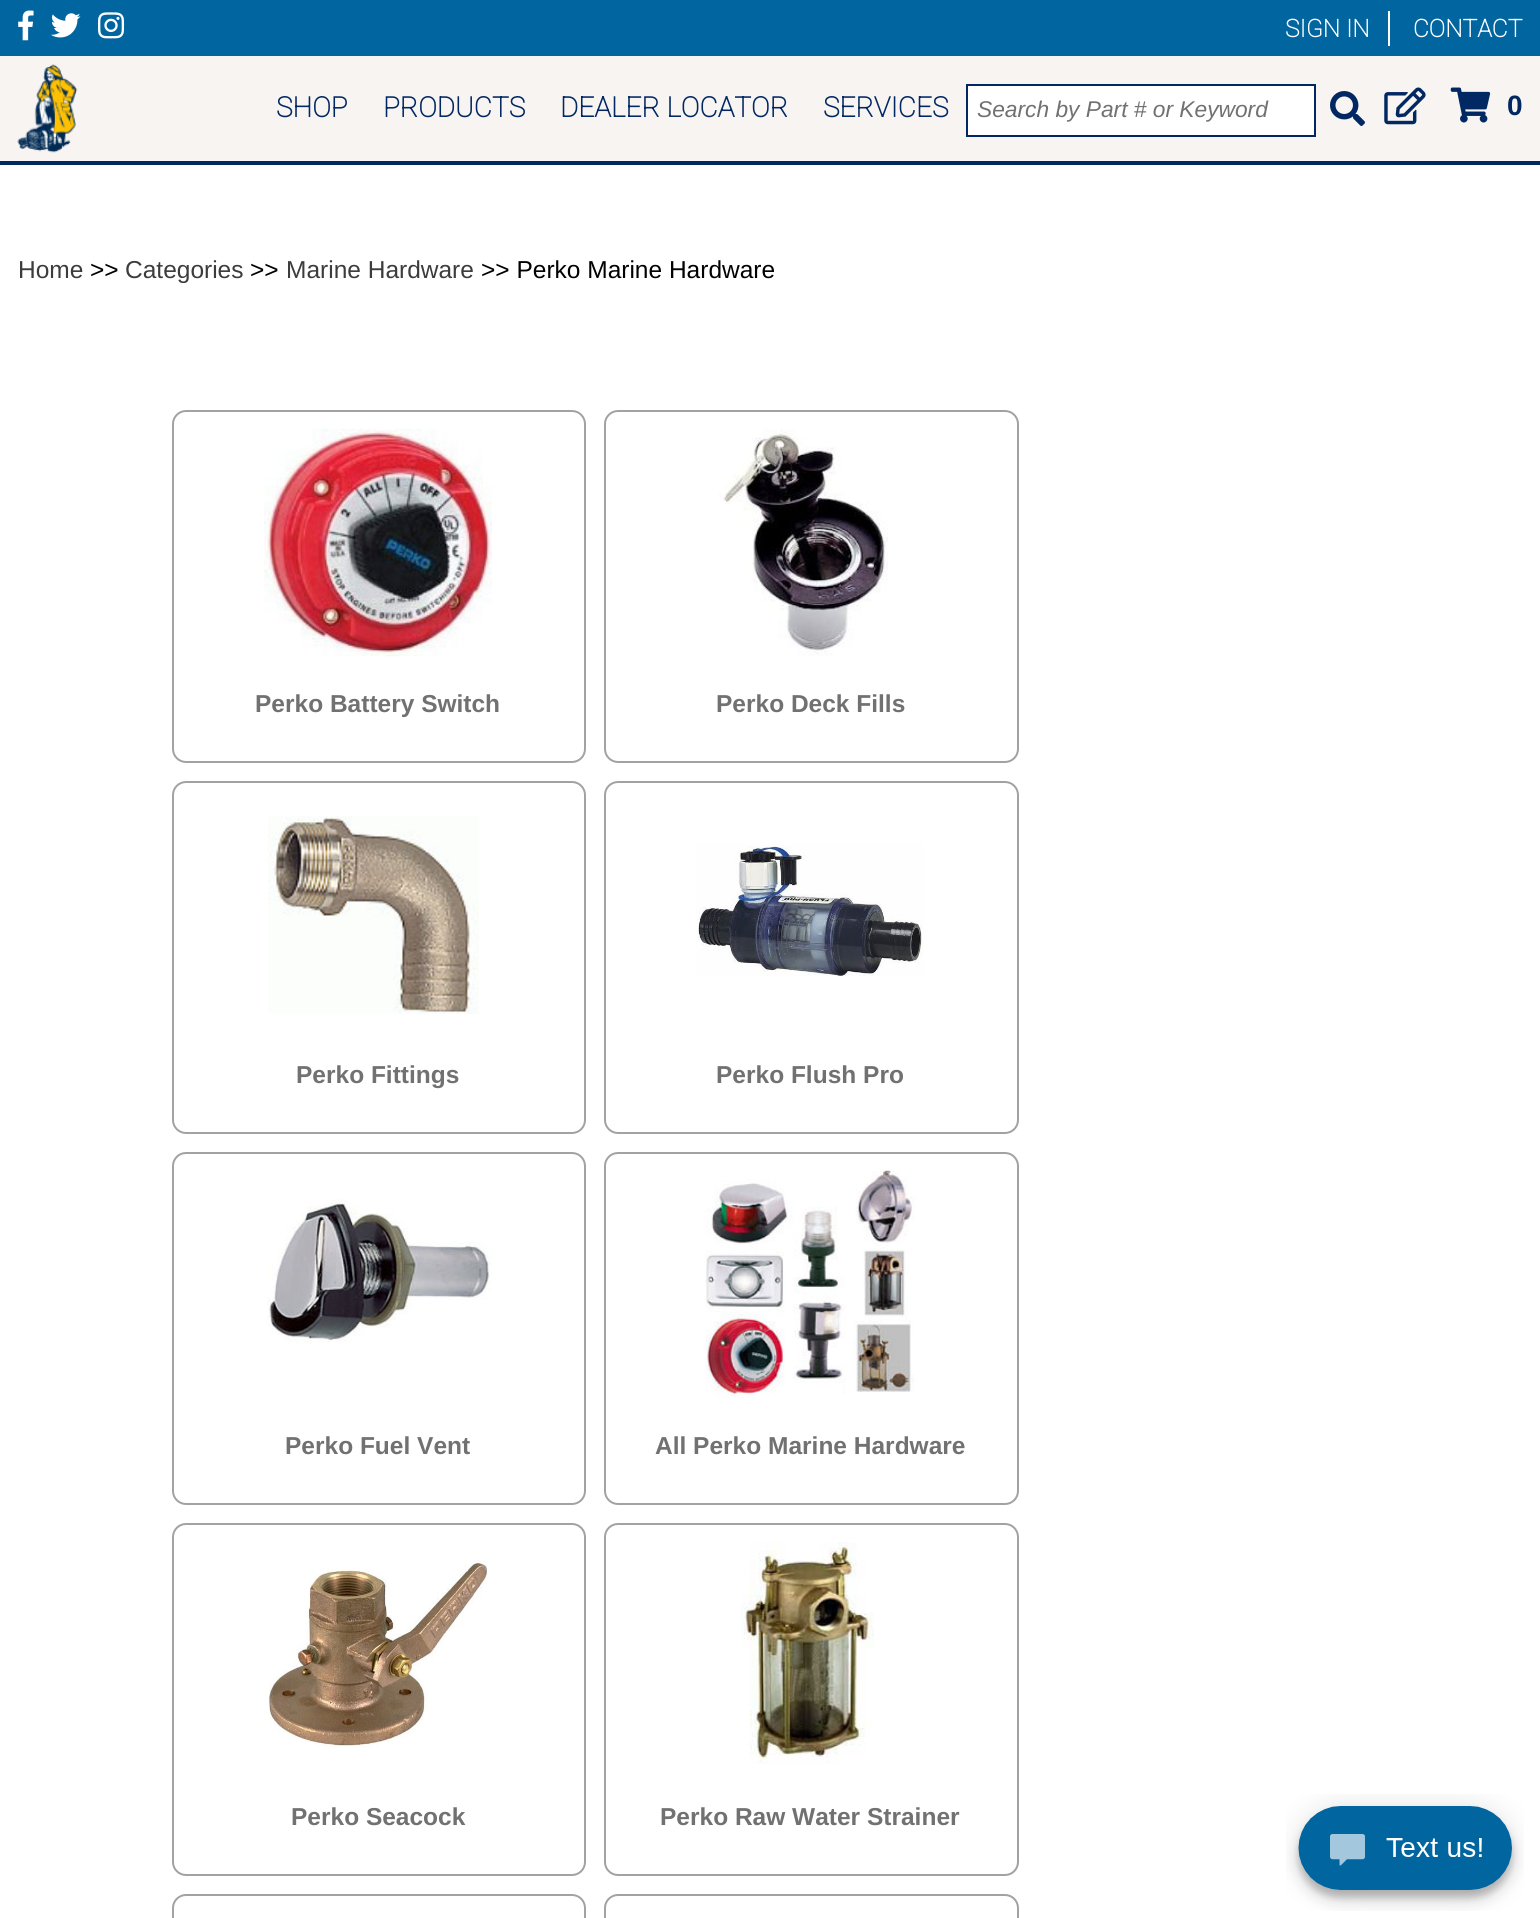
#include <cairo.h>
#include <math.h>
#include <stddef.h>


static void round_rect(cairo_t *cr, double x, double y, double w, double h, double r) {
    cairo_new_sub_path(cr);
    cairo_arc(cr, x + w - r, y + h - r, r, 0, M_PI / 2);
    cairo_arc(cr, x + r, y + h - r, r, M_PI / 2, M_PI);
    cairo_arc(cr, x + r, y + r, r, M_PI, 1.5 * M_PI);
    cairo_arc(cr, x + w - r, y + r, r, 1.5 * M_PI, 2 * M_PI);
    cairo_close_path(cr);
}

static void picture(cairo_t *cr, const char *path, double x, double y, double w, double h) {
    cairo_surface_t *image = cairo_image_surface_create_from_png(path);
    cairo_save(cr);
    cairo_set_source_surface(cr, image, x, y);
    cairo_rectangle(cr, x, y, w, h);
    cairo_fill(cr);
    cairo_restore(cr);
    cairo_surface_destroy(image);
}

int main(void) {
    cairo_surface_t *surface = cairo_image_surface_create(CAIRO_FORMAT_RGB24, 1540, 1918);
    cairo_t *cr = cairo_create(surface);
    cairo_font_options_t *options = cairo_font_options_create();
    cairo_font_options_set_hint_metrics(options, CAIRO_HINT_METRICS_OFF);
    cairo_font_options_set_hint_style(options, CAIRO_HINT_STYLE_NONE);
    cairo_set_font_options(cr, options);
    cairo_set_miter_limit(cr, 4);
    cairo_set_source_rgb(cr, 1, 1, 1);
    cairo_paint(cr);
    cairo_set_source_rgb(cr, 0.965, 0.957, 0.949);
    cairo_rectangle(cr, 0, 56, 1540, 105);
    cairo_fill(cr);
    cairo_set_source_rgb(cr, 0.004, 0.157, 0.384);
    cairo_rectangle(cr, 0, 161, 1540, 4);
    cairo_fill(cr);
    cairo_set_source_rgb(cr, 0.004, 0.396, 0.627);
    cairo_rectangle(cr, 0, 0, 1540, 56);
    cairo_fill(cr);
    picture(cr, "img1.png", 18, 10, 16, 31);
    picture(cr, "img2.png", 51, 13, 30, 25);
    picture(cr, "img3.png", 98, 12, 27, 27);
    cairo_set_source_rgb(cr, 1, 1, 1);
    cairo_rectangle(cr, 1388, 11, 2, 35);
    cairo_fill(cr);
    cairo_select_font_face(cr, "Roboto", CAIRO_FONT_SLANT_NORMAL, CAIRO_FONT_WEIGHT_BOLD);
    cairo_set_font_size(cr, 24.5);
    cairo_move_to(cr, 1285, 37);
    cairo_show_text(cr, "SIGN IN");
    cairo_move_to(cr, 1413, 37);
    cairo_show_text(cr, "CONTACT");
    picture(cr, "img4.png", 17, 64, 61, 89);
    cairo_set_font_size(cr, 28);
    cairo_set_source_rgb(cr, 0.004, 0.157, 0.384);
    cairo_move_to(cr, 276, 117);
    cairo_show_text(cr, "SHOP");
    cairo_move_to(cr, 383, 117);
    cairo_show_text(cr, "PRODUCTS");
    cairo_move_to(cr, 560, 117);
    cairo_show_text(cr, "DEALER LOCATOR");
    cairo_move_to(cr, 823, 117);
    cairo_show_text(cr, "SERVICES");
    cairo_set_source_rgb(cr, 1, 1, 1);
    cairo_rectangle(cr, 967, 85, 348, 51);
    cairo_fill_preserve(cr);
    cairo_set_source_rgb(cr, 0.004, 0.157, 0.384);
    cairo_stroke(cr);
    cairo_select_font_face(cr, "Liberation Sans", CAIRO_FONT_SLANT_ITALIC, CAIRO_FONT_WEIGHT_NORMAL);
    cairo_set_font_size(cr, 22.75);
    cairo_set_source_rgb(cr, 0.443, 0.443, 0.443);
    cairo_move_to(cr, 977, 117);
    cairo_show_text(cr, "Search by Part # or Keyword");
    picture(cr, "img5.png", 1330, 91, 35, 35);
    picture(cr, "img6.png", 1384, 87, 42, 38);
    picture(cr, "img7.png", 1450, 87, 41, 36);
    cairo_select_font_face(cr, "Liberation Sans", CAIRO_FONT_SLANT_NORMAL, CAIRO_FONT_WEIGHT_BOLD);
    cairo_set_font_size(cr, 28);
    cairo_set_source_rgb(cr, 0.004, 0.157, 0.384);
    cairo_move_to(cr, 1507, 115);
    cairo_show_text(cr, "0");
    cairo_select_font_face(cr, "Liberation Sans", CAIRO_FONT_SLANT_NORMAL, CAIRO_FONT_WEIGHT_NORMAL);
    cairo_set_font_size(cr, 24.5);
    cairo_set_source_rgb(cr, 0.235, 0.235, 0.235);
    cairo_move_to(cr, 18, 278);
    cairo_show_text(cr, "Home");
    cairo_set_source_rgb(cr, 0, 0, 0);
    cairo_move_to(cr, 90, 278);
    cairo_show_text(cr, ">>");
    cairo_set_source_rgb(cr, 0.235, 0.235, 0.235);
    cairo_move_to(cr, 125, 278);
    cairo_show_text(cr, "Categories");
    cairo_set_source_rgb(cr, 0, 0, 0);
    cairo_move_to(cr, 250, 278);
    cairo_show_text(cr, ">>");
    cairo_set_source_rgb(cr, 0.235, 0.235, 0.235);
    cairo_move_to(cr, 286, 278);
    cairo_show_text(cr, "Marine Hardware");
    cairo_set_source_rgb(cr, 0, 0, 0);
    cairo_move_to(cr, 481, 278);
    cairo_show_text(cr, ">> Perko Marine Hardware");
    round_rect(cr, 173, 411, 412, 351, 13);
    cairo_set_source_rgb(cr, 0.635, 0.635, 0.635);
    cairo_stroke(cr);
    picture(cr, "img8.png", 264, 428, 228, 229);
    cairo_select_font_face(cr, "Liberation Sans", CAIRO_FONT_SLANT_NORMAL, CAIRO_FONT_WEIGHT_BOLD);
    cairo_set_source_rgb(cr, 0.443, 0.443, 0.443);
    cairo_move_to(cr, 255, 712);
    cairo_show_text(cr, "Perko Battery Switch");
    round_rect(cr, 605, 411, 413, 351, 13);
    cairo_set_source_rgb(cr, 0.635, 0.635, 0.635);
    cairo_stroke(cr);
    picture(cr, "img9.png", 719, 429, 169, 227);
    cairo_set_source_rgb(cr, 0.443, 0.443, 0.443);
    cairo_move_to(cr, 716, 712);
    cairo_show_text(cr, "Perko Deck Fills");
    round_rect(cr, 173, 782, 412, 351, 13);
    cairo_set_source_rgb(cr, 0.635, 0.635, 0.635);
    cairo_stroke(cr);
    picture(cr, "img10.png", 268, 816, 211, 198);
    cairo_set_source_rgb(cr, 0.443, 0.443, 0.443);
    cairo_move_to(cr, 296, 1083);
    cairo_show_text(cr, "Perko Fittings");
    round_rect(cr, 605, 782, 413, 351, 13);
    cairo_set_source_rgb(cr, 0.635, 0.635, 0.635);
    cairo_stroke(cr);
    picture(cr, "img11.png", 696, 844, 228, 132);
    cairo_set_source_rgb(cr, 0.443, 0.443, 0.443);
    cairo_move_to(cr, 716, 1083);
    cairo_show_text(cr, "Perko Flush Pro");
    round_rect(cr, 173, 1153, 412, 351, 13);
    cairo_set_source_rgb(cr, 0.635, 0.635, 0.635);
    cairo_stroke(cr);
    picture(cr, "img12.png", 267, 1199, 225, 144);
    cairo_set_source_rgb(cr, 0.443, 0.443, 0.443);
    cairo_move_to(cr, 285, 1454);
    cairo_show_text(cr, "Perko Fuel Vent");
    round_rect(cr, 605, 1153, 413, 351, 13);
    cairo_set_source_rgb(cr, 0.635, 0.635, 0.635);
    cairo_stroke(cr);
    picture(cr, "img13.png", 705, 1170, 210, 228);
    cairo_set_source_rgb(cr, 0.443, 0.443, 0.443);
    cairo_move_to(cr, 655, 1454);
    cairo_show_text(cr, "All Perko Marine Hardware");
    round_rect(cr, 173, 1524, 412, 351, 13);
    cairo_set_source_rgb(cr, 0.635, 0.635, 0.635);
    cairo_stroke(cr);
    picture(cr, "img14.png", 267, 1560, 220, 188);
    cairo_set_source_rgb(cr, 0.443, 0.443, 0.443);
    cairo_move_to(cr, 291, 1825);
    cairo_show_text(cr, "Perko Seacock");
    round_rect(cr, 605, 1524, 413, 351, 13);
    cairo_set_source_rgb(cr, 0.635, 0.635, 0.635);
    cairo_stroke(cr);
    picture(cr, "img15.png", 741, 1542, 133, 222);
    cairo_set_source_rgb(cr, 0.443, 0.443, 0.443);
    cairo_move_to(cr, 660, 1825);
    cairo_show_text(cr, "Perko Raw Water Strainer");
    round_rect(cr, 173, 1895, 412, 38, 13);
    cairo_set_source_rgb(cr, 0.635, 0.635, 0.635);
    cairo_stroke(cr);
    round_rect(cr, 605, 1895, 413, 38, 13);
    cairo_stroke(cr);
    picture(cr, "img16.png", 1286, 1794, 238, 117);
    cairo_surface_write_to_png(surface, "page.png");
    cairo_font_options_destroy(options);
    cairo_destroy(cr);
    cairo_surface_destroy(surface);
    return 0;
}
